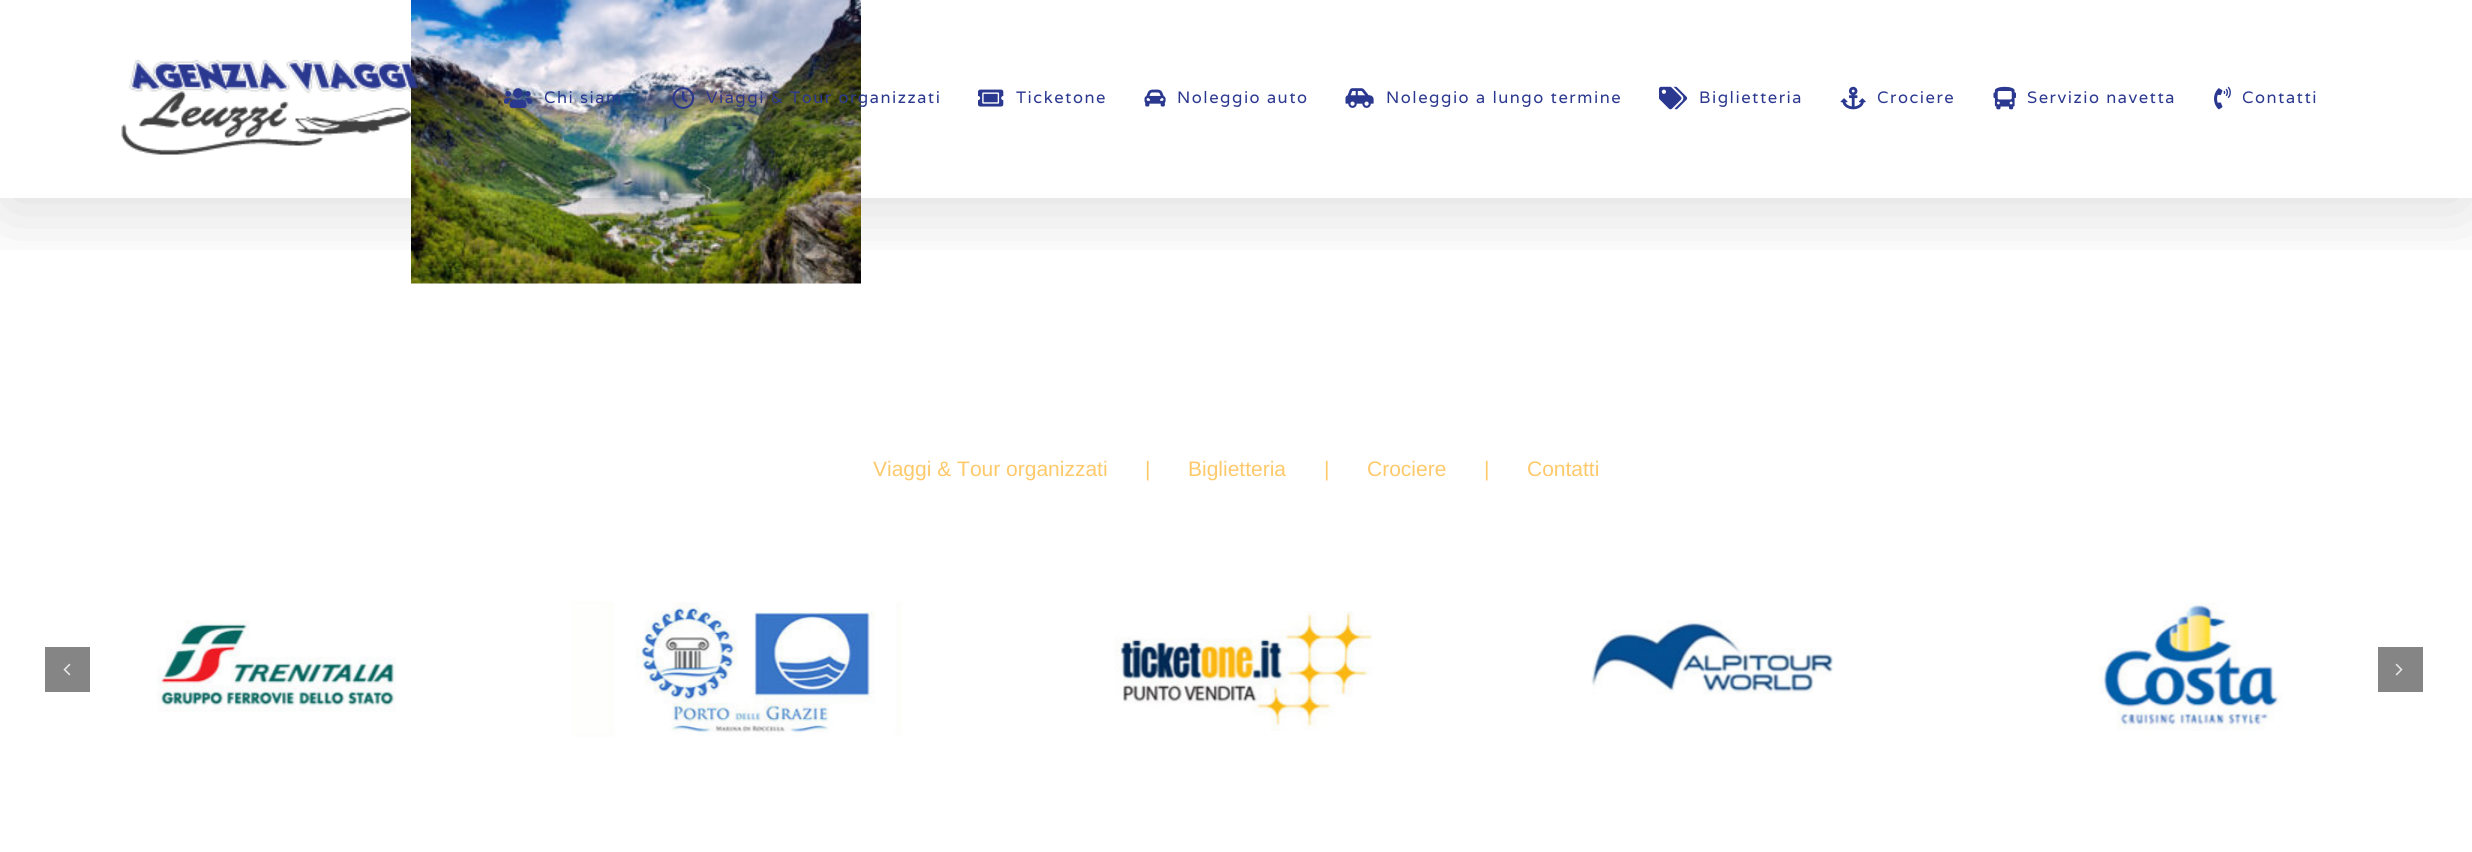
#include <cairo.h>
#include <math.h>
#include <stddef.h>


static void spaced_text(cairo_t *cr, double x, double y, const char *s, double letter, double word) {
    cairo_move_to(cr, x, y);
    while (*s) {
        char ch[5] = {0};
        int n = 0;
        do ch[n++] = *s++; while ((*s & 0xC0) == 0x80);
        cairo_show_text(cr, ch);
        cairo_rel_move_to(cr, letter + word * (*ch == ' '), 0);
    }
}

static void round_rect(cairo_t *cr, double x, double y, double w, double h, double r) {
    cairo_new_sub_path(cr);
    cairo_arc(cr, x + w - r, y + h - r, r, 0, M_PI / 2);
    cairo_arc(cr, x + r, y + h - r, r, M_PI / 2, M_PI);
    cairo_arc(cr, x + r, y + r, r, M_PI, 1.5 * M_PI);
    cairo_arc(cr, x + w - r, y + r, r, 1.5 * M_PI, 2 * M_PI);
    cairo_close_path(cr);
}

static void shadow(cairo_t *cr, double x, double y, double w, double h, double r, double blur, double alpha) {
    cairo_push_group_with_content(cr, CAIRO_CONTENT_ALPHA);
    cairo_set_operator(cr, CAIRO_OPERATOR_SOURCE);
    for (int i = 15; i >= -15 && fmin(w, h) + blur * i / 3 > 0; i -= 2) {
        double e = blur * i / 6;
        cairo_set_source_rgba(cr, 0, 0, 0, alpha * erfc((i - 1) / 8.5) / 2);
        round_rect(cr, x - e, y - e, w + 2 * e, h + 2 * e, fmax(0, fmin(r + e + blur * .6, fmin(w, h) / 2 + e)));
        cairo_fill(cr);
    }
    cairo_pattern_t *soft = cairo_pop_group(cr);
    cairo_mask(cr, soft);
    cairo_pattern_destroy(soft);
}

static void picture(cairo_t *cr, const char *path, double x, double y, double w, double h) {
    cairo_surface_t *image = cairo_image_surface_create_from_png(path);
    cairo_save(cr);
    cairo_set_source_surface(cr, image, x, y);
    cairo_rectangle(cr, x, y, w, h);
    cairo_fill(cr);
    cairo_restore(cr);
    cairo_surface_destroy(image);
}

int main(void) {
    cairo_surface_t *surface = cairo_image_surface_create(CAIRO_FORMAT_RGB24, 2472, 852);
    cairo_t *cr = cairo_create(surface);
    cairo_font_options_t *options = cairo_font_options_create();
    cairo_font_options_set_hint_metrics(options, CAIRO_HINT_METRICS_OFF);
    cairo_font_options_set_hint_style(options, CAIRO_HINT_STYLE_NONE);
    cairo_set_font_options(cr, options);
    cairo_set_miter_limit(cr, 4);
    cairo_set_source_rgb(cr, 1, 1, 1);
    cairo_paint(cr);
    picture(cr, "img1.png", 411, 0, 450, 284);
    cairo_save(cr);
    cairo_rectangle(cr, 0, 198, 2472, 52);
    cairo_clip(cr);
    cairo_set_source_rgb(cr, 0, 0, 0);
    shadow(cr, 3, 18, 2466, 192, 0, 37.5, 0.14);
    cairo_restore(cr);
    picture(cr, "img2.png", 121, 59, 300, 96);
    picture(cr, "img3.png", 504, 88, 29, 20);
    cairo_select_font_face(cr, "Varela", CAIRO_FONT_SLANT_NORMAL, CAIRO_FONT_WEIGHT_NORMAL);
    cairo_set_font_size(cr, 16.5);
    cairo_set_source_rgb(cr, 0.169, 0.22, 0.561);
    spaced_text(cr, 544, 103, "Chi siam", 1.5, 0);
    picture(cr, "img4.png", 672, 87, 23, 22);
    spaced_text(cr, 706, 103, "Viaggi & Tour organizzati", 1.5, 0);
    picture(cr, "img5.png", 978, 89, 26, 18);
    spaced_text(cr, 1016, 103, "Ticketone", 1.5, 0);
    picture(cr, "img6.png", 1144, 89, 22, 18);
    spaced_text(cr, 1177, 103, "Noleggio auto", 1.5, 0);
    picture(cr, "img7.png", 1345, 88, 29, 20);
    spaced_text(cr, 1386, 103, "Noleggio a lungo termine", 1.5, 0);
    picture(cr, "img8.png", 1659, 86, 29, 24);
    spaced_text(cr, 1699, 103, "Biglietteria", 1.5, 0);
    picture(cr, "img9.png", 1840, 86, 26, 24);
    spaced_text(cr, 1877, 103, "Crociere", 1.5, 0);
    picture(cr, "img10.png", 1993, 86, 23, 24);
    spaced_text(cr, 2027, 103, "Servizio navetta", 1.5, 0);
    picture(cr, "img11.png", 2214, 86, 17, 24);
    spaced_text(cr, 2242, 103, "Contatti", 1.5, 0);
    cairo_select_font_face(cr, "Liberation Sans", CAIRO_FONT_SLANT_NORMAL, CAIRO_FONT_WEIGHT_NORMAL);
    cairo_set_font_size(cr, 21);
    cairo_set_source_rgb(cr, 0.996, 0.788, 0.42);
    cairo_move_to(cr, 873, 476);
    cairo_show_text(cr, "Viaggi & Tour organizzati");
    cairo_move_to(cr, 1145, 476);
    cairo_show_text(cr, "|");
    cairo_move_to(cr, 1188, 476);
    cairo_show_text(cr, "Biglietteria");
    cairo_move_to(cr, 1324, 476);
    cairo_show_text(cr, "|");
    cairo_move_to(cr, 1367, 476);
    cairo_show_text(cr, "Crociere");
    cairo_move_to(cr, 1484, 476);
    cairo_show_text(cr, "|");
    cairo_move_to(cr, 1527, 476);
    cairo_show_text(cr, "Contatti");
    picture(cr, "img12.png", 157, 620, 239, 92);
    picture(cr, "img13.png", 572, 602, 330, 135);
    picture(cr, "img14.png", 1114, 611, 259, 120);
    picture(cr, "img15.png", 1591, 620, 243, 74);
    picture(cr, "img16.png", 2099, 602, 184, 129);
    cairo_set_source_rgb(cr, 0.522, 0.522, 0.522);
    cairo_rectangle(cr, 45, 647, 45, 45);
    cairo_fill(cr);
    picture(cr, "img17.png", 63, 663, 8, 13);
    cairo_rectangle(cr, 2378, 647, 45, 45);
    cairo_fill(cr);
    picture(cr, "img18.png", 2395, 663, 8, 13);
    cairo_surface_write_to_png(surface, "page.png");
    cairo_font_options_destroy(options);
    cairo_destroy(cr);
    cairo_surface_destroy(surface);
    return 0;
}
